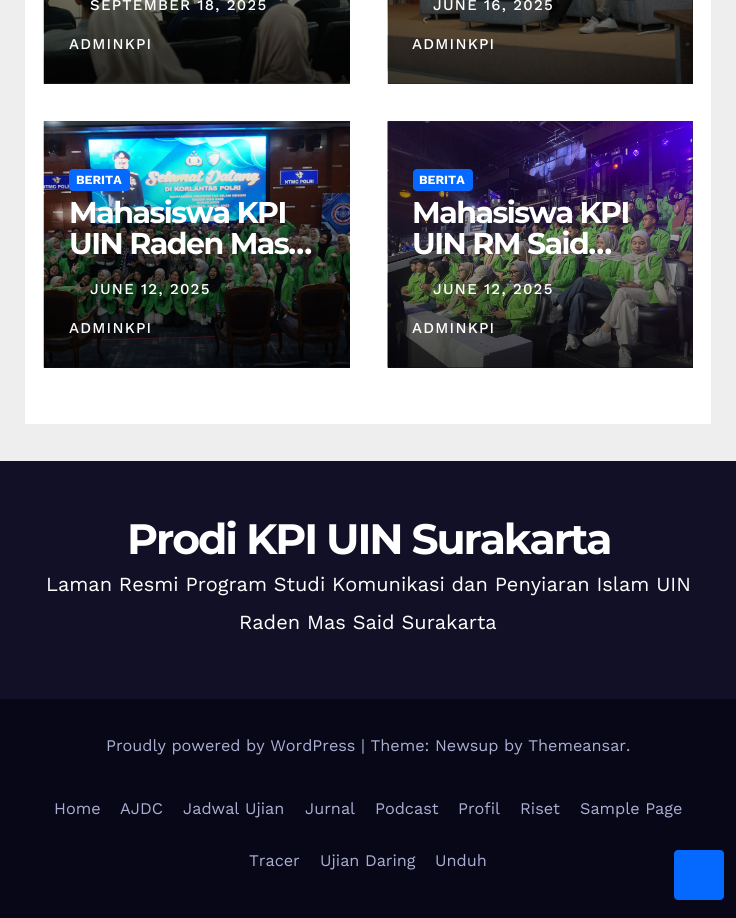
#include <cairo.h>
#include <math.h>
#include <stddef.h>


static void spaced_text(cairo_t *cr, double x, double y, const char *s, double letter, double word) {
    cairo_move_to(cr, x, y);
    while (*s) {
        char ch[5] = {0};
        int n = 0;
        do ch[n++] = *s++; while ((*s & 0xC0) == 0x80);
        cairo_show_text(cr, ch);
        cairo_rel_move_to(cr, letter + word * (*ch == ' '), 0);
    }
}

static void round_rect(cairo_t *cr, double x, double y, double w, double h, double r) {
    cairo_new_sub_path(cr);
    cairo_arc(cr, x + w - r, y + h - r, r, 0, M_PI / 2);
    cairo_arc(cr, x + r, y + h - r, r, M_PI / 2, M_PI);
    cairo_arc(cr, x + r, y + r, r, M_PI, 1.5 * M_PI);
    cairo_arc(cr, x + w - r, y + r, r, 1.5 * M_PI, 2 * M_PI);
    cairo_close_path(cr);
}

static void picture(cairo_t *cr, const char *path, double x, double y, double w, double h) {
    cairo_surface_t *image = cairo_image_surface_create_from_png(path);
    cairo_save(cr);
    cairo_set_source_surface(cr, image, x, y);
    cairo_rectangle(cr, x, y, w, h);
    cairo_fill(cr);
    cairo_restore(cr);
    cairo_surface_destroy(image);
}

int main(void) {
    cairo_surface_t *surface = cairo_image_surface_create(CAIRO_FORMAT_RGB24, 736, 918);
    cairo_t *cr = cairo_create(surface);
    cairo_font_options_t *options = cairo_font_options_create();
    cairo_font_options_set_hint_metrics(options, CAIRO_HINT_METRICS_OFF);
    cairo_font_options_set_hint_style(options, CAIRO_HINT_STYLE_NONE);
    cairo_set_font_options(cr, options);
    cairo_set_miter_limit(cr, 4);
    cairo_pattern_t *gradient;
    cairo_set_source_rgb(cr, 0.933, 0.933, 0.933);
    cairo_paint(cr);
    cairo_set_source_rgb(cr, 1, 1, 1);
    cairo_rectangle(cr, 25, 0, 686, 424);
    cairo_fill(cr);
    picture(cr, "img1.png", 43, 0, 307, 84);
    gradient = cairo_pattern_create_linear(197, -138, 197, 84);
    cairo_pattern_add_color_stop_rgba(gradient, 0, 0, 0, 0, 0);
    cairo_pattern_add_color_stop_rgba(gradient, 0.5, 0, 0, 0, 0.4);
    cairo_pattern_add_color_stop_rgba(gradient, 1, 0, 0, 0, 0.7);
    cairo_set_source(cr, gradient);
    cairo_pattern_destroy(gradient);
    cairo_rectangle(cr, 44, 0, 306, 84);
    cairo_fill(cr);
    cairo_select_font_face(cr, "Work Sans Medium", CAIRO_FONT_SLANT_NORMAL, CAIRO_FONT_WEIGHT_NORMAL);
    cairo_set_font_size(cr, 15);
    cairo_set_source_rgb(cr, 1, 1, 1);
    spaced_text(cr, 90, 10, "SEPTEMBER 18, 2025", 1.25, 0);
    spaced_text(cr, 69, 49, "ADMINKPI", 1.25, 0);
    cairo_set_source_rgb(cr, 0.2, 0.2, 0.2);
    cairo_rectangle(cr, 388, 0, 305, 84);
    cairo_fill(cr);
    picture(cr, "img2.png", 387, 0, 306, 84);
    gradient = cairo_pattern_create_linear(540, -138, 540, 84);
    cairo_pattern_add_color_stop_rgba(gradient, 0, 0, 0, 0, 0);
    cairo_pattern_add_color_stop_rgba(gradient, 0.5, 0, 0, 0, 0.4);
    cairo_pattern_add_color_stop_rgba(gradient, 1, 0, 0, 0, 0.7);
    cairo_set_source(cr, gradient);
    cairo_pattern_destroy(gradient);
    cairo_rectangle(cr, 388, 0, 305, 84);
    cairo_fill(cr);
    cairo_set_source_rgb(cr, 1, 1, 1);
    spaced_text(cr, 433, 10, "JUNE 16, 2025", 1.25, 0);
    spaced_text(cr, 412, 49, "ADMINKPI", 1.25, 0);
    cairo_set_source_rgb(cr, 0.2, 0.2, 0.2);
    cairo_rectangle(cr, 44, 121, 306, 247);
    cairo_fill(cr);
    picture(cr, "img3.png", 43, 121, 307, 247);
    gradient = cairo_pattern_create_linear(197, 146, 197, 368);
    cairo_pattern_add_color_stop_rgba(gradient, 0, 0, 0, 0, 0);
    cairo_pattern_add_color_stop_rgba(gradient, 0.5, 0, 0, 0, 0.4);
    cairo_pattern_add_color_stop_rgba(gradient, 1, 0, 0, 0, 0.7);
    cairo_set_source(cr, gradient);
    cairo_pattern_destroy(gradient);
    cairo_rectangle(cr, 44, 152, 306, 216);
    cairo_fill(cr);
    cairo_set_source_rgb(cr, 0.024, 0.412, 1);
    round_rect(cr, 69, 169, 61, 22, 4);
    cairo_fill(cr);
    cairo_select_font_face(cr, "Work Sans", CAIRO_FONT_SLANT_NORMAL, CAIRO_FONT_WEIGHT_BOLD);
    cairo_set_font_size(cr, 12.5);
    cairo_set_source_rgb(cr, 1, 1, 1);
    cairo_move_to(cr, 76, 184);
    cairo_show_text(cr, "BERITA");
    cairo_select_font_face(cr, "Montserrat", CAIRO_FONT_SLANT_NORMAL, CAIRO_FONT_WEIGHT_BOLD);
    cairo_set_font_size(cr, 30);
    spaced_text(cr, 69, 223, "Mahasiswa KPI", -1.5, 0);
    spaced_text(cr, 69, 254, "UIN Raden Mas…", -1.5, 0);
    cairo_select_font_face(cr, "Work Sans Medium", CAIRO_FONT_SLANT_NORMAL, CAIRO_FONT_WEIGHT_NORMAL);
    cairo_set_font_size(cr, 15);
    spaced_text(cr, 90, 294, "JUNE 12, 2025", 1.25, 0);
    spaced_text(cr, 69, 333, "ADMINKPI", 1.25, 0);
    cairo_set_source_rgb(cr, 0.2, 0.2, 0.2);
    cairo_rectangle(cr, 388, 121, 305, 247);
    cairo_fill(cr);
    picture(cr, "img4.png", 387, 121, 306, 247);
    gradient = cairo_pattern_create_linear(540, 146, 540, 368);
    cairo_pattern_add_color_stop_rgba(gradient, 0, 0, 0, 0, 0);
    cairo_pattern_add_color_stop_rgba(gradient, 0.5, 0, 0, 0, 0.4);
    cairo_pattern_add_color_stop_rgba(gradient, 1, 0, 0, 0, 0.7);
    cairo_set_source(cr, gradient);
    cairo_pattern_destroy(gradient);
    cairo_rectangle(cr, 388, 152, 305, 216);
    cairo_fill(cr);
    cairo_set_source_rgb(cr, 0.024, 0.412, 1);
    round_rect(cr, 413, 169, 60, 22, 4);
    cairo_fill(cr);
    cairo_select_font_face(cr, "Work Sans", CAIRO_FONT_SLANT_NORMAL, CAIRO_FONT_WEIGHT_BOLD);
    cairo_set_font_size(cr, 12.5);
    cairo_set_source_rgb(cr, 1, 1, 1);
    cairo_move_to(cr, 419, 184);
    cairo_show_text(cr, "BERITA");
    cairo_select_font_face(cr, "Montserrat", CAIRO_FONT_SLANT_NORMAL, CAIRO_FONT_WEIGHT_BOLD);
    cairo_set_font_size(cr, 30);
    spaced_text(cr, 412, 223, "Mahasiswa KPI", -1.5, 0);
    spaced_text(cr, 412, 254, "UIN RM Said…", -1.5, 0);
    cairo_select_font_face(cr, "Work Sans Medium", CAIRO_FONT_SLANT_NORMAL, CAIRO_FONT_WEIGHT_NORMAL);
    cairo_set_font_size(cr, 15);
    spaced_text(cr, 433, 294, "JUNE 12, 2025", 1.25, 0);
    spaced_text(cr, 412, 333, "ADMINKPI", 1.25, 0);
    cairo_set_source_rgb(cr, 0.071, 0.063, 0.149);
    cairo_rectangle(cr, 0, 461, 736, 238);
    cairo_fill(cr);
    cairo_select_font_face(cr, "Montserrat", CAIRO_FONT_SLANT_NORMAL, CAIRO_FONT_WEIGHT_BOLD);
    cairo_set_font_size(cr, 42.5);
    cairo_set_source_rgb(cr, 1, 1, 1);
    spaced_text(cr, 127, 554, "Prodi KPI UIN Surakarta", -2.1, 0);
    cairo_select_font_face(cr, "Work Sans", CAIRO_FONT_SLANT_NORMAL, CAIRO_FONT_WEIGHT_NORMAL);
    cairo_set_font_size(cr, 20);
    cairo_move_to(cr, 46, 591);
    cairo_show_text(cr, "Laman Resmi Program Studi Komunikasi dan Penyiaran Islam UIN");
    cairo_move_to(cr, 239, 629);
    cairo_show_text(cr, "Raden Mas Said Surakarta");
    cairo_set_source_rgb(cr, 0.035, 0.031, 0.094);
    cairo_rectangle(cr, 0, 699, 736, 219);
    cairo_fill(cr);
    cairo_set_font_size(cr, 16.25);
    cairo_set_source_rgb(cr, 0.667, 0.682, 0.82);
    cairo_move_to(cr, 106, 751);
    cairo_show_text(cr, "Proudly powered by WordPress | Theme: Newsup by Themeansar.");
    cairo_move_to(cr, 54, 814);
    cairo_show_text(cr, "Home");
    cairo_move_to(cr, 120, 814);
    cairo_show_text(cr, "AJDC");
    cairo_move_to(cr, 183, 814);
    cairo_show_text(cr, "Jadwal Ujian");
    cairo_move_to(cr, 305, 814);
    cairo_show_text(cr, "Jurnal");
    cairo_move_to(cr, 375, 814);
    cairo_show_text(cr, "Podcast");
    cairo_move_to(cr, 458, 814);
    cairo_show_text(cr, "Profil");
    cairo_move_to(cr, 520, 814);
    cairo_show_text(cr, "Riset");
    cairo_move_to(cr, 580, 814);
    cairo_show_text(cr, "Sample Page");
    cairo_move_to(cr, 249, 866);
    cairo_show_text(cr, "Tracer");
    cairo_move_to(cr, 320, 866);
    cairo_show_text(cr, "Ujian Daring");
    cairo_move_to(cr, 435, 866);
    cairo_show_text(cr, "Unduh");
    cairo_set_source_rgb(cr, 0.024, 0.412, 1);
    round_rect(cr, 675.5, 851.5, 47, 47, 2.5);
    cairo_fill_preserve(cr);
    cairo_set_line_width(cr, 3);
    cairo_stroke(cr);
    cairo_surface_write_to_png(surface, "page.png");
    cairo_font_options_destroy(options);
    cairo_destroy(cr);
    cairo_surface_destroy(surface);
    return 0;
}
